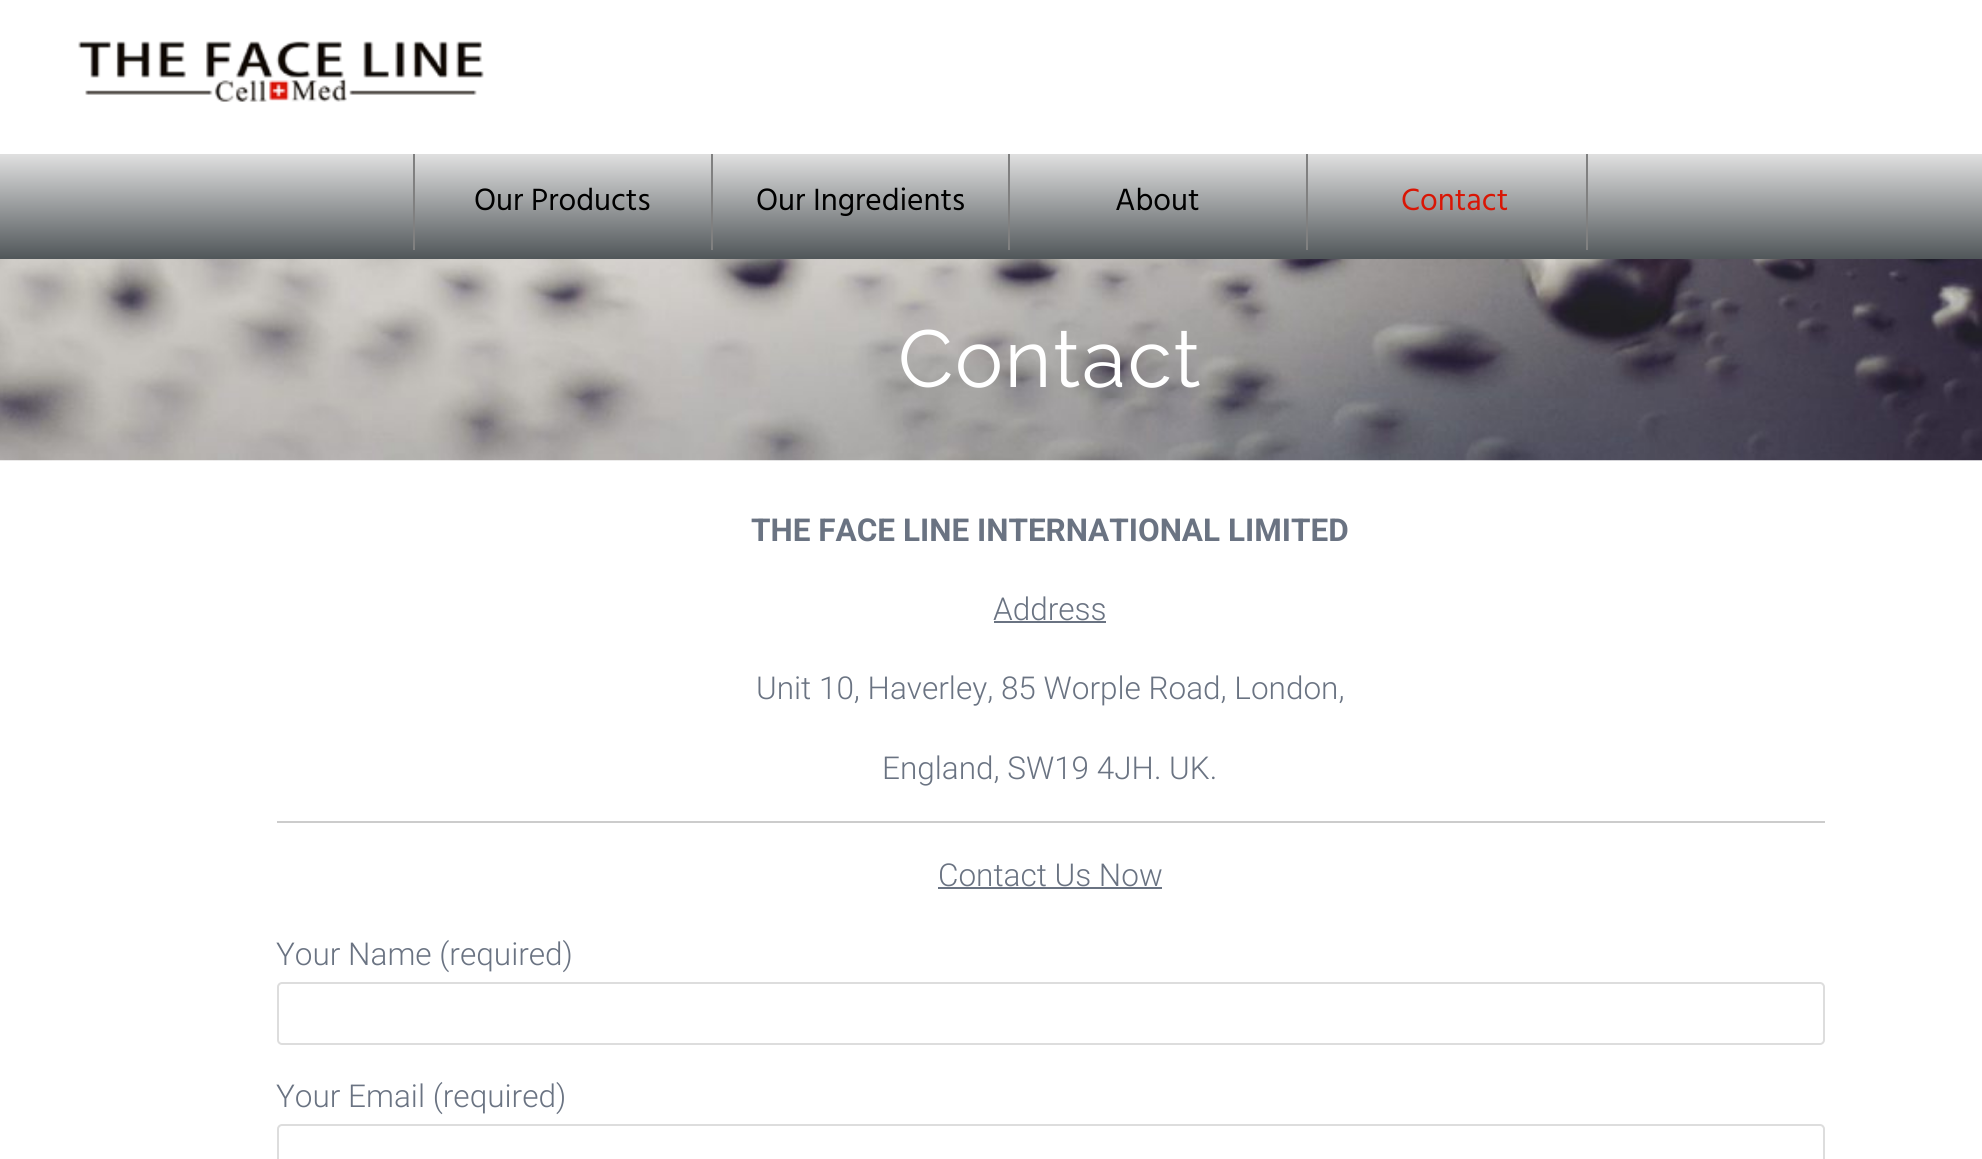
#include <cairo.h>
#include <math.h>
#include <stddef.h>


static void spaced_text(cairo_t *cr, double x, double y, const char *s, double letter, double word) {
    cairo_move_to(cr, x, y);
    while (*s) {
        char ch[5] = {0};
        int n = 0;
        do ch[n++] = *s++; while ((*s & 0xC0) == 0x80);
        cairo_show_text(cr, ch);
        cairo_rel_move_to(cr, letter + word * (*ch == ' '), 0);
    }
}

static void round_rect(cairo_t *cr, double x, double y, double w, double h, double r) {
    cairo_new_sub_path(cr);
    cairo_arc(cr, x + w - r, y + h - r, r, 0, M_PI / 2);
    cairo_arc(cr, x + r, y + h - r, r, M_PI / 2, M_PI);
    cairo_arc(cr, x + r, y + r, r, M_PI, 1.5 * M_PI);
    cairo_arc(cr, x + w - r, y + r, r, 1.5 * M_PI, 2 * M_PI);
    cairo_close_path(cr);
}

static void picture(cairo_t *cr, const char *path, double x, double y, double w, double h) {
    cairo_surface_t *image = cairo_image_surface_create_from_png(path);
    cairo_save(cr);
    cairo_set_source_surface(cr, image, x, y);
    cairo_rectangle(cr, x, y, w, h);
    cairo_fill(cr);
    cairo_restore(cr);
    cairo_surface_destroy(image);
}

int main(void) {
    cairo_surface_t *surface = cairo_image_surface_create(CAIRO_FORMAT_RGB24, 1982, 1159);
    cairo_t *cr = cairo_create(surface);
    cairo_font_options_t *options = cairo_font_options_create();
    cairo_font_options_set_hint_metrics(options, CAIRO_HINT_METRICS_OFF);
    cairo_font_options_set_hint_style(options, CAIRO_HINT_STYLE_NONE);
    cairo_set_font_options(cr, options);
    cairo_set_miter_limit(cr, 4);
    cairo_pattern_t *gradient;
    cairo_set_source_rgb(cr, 1, 1, 1);
    cairo_paint(cr);
    picture(cr, "img1.png", 78, 41, 406, 61);
    gradient = cairo_pattern_create_linear(991, 154, 991, 259);
    cairo_pattern_add_color_stop_rgba(gradient, 0, 0.878, 0.878, 0.878, 1);
    cairo_pattern_add_color_stop_rgba(gradient, 1, 0.314, 0.337, 0.349, 1);
    cairo_set_source(cr, gradient);
    cairo_pattern_destroy(gradient);
    cairo_rectangle(cr, 0, 154, 1982, 105);
    cairo_fill(cr);
    cairo_set_source_rgb(cr, 0.502, 0.502, 0.502);
    cairo_rectangle(cr, 413, 154, 2, 96);
    cairo_fill(cr);
    cairo_select_font_face(cr, "Hind", CAIRO_FONT_SLANT_NORMAL, CAIRO_FONT_WEIGHT_NORMAL);
    cairo_set_font_size(cr, 31.5);
    cairo_set_source_rgb(cr, 0, 0, 0);
    cairo_move_to(cr, 474, 210);
    cairo_show_text(cr, "Our Products");
    cairo_set_source_rgb(cr, 0.502, 0.502, 0.502);
    cairo_rectangle(cr, 711, 154, 2, 96);
    cairo_fill(cr);
    cairo_set_source_rgb(cr, 0, 0, 0);
    cairo_move_to(cr, 756, 210);
    cairo_show_text(cr, "Our Ingredients");
    cairo_set_source_rgb(cr, 0.502, 0.502, 0.502);
    cairo_rectangle(cr, 1008, 154, 2, 96);
    cairo_fill(cr);
    cairo_set_source_rgb(cr, 0, 0, 0);
    cairo_move_to(cr, 1115, 210);
    cairo_show_text(cr, "About");
    cairo_set_source_rgb(cr, 0.502, 0.502, 0.502);
    cairo_rectangle(cr, 1586, 154, 2, 96);
    cairo_fill(cr);
    cairo_rectangle(cr, 1306, 154, 2, 96);
    cairo_fill(cr);
    cairo_set_source_rgb(cr, 0.851, 0.086, 0.02);
    cairo_move_to(cr, 1401, 210);
    cairo_show_text(cr, "Contact");
    picture(cr, "img2.png", 0, 259, 1982, 202);
    cairo_select_font_face(cr, "Raleway", CAIRO_FONT_SLANT_NORMAL, CAIRO_FONT_WEIGHT_NORMAL);
    cairo_set_font_size(cr, 80.5);
    cairo_set_source_rgb(cr, 1, 1, 1);
    spaced_text(cr, 898, 387, "Contact", 1.75, 0);
    cairo_select_font_face(cr, "Roboto", CAIRO_FONT_SLANT_NORMAL, CAIRO_FONT_WEIGHT_BOLD);
    cairo_set_font_size(cr, 31.5);
    cairo_set_source_rgb(cr, 0.416, 0.451, 0.51);
    cairo_move_to(cr, 751, 541);
    cairo_show_text(cr, "THE FACE LINE INTERNATIONAL LIMITED");
    cairo_select_font_face(cr, "Roboto Light", CAIRO_FONT_SLANT_NORMAL, CAIRO_FONT_WEIGHT_NORMAL);
    cairo_move_to(cr, 993, 620);
    cairo_show_text(cr, "Address");
    cairo_rectangle(cr, 994, 621, 112, 2);
    cairo_fill(cr);
    cairo_move_to(cr, 756, 699);
    cairo_show_text(cr, "Unit 10, Haverley, 85 Worple Road, London,");
    cairo_move_to(cr, 882, 779);
    cairo_show_text(cr, "England, SW19 4JH. UK.");
    cairo_set_source_rgb(cr, 0.8, 0.8, 0.8);
    cairo_rectangle(cr, 277, 821, 1548, 2);
    cairo_fill(cr);
    cairo_set_source_rgb(cr, 0.416, 0.451, 0.51);
    cairo_move_to(cr, 938, 886);
    cairo_show_text(cr, "Contact Us Now");
    cairo_rectangle(cr, 938, 887, 224, 2);
    cairo_fill(cr);
    cairo_move_to(cr, 276, 965);
    cairo_show_text(cr, "Your Name (required)");
    round_rect(cr, 278, 983, 1546, 61, 4);
    cairo_set_source_rgb(cr, 0.867, 0.867, 0.867);
    cairo_stroke(cr);
    cairo_set_source_rgb(cr, 0.416, 0.451, 0.51);
    cairo_move_to(cr, 276, 1107);
    cairo_show_text(cr, "Your Email (required)");
    round_rect(cr, 278, 1125, 1546, 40, 4);
    cairo_set_source_rgb(cr, 0.867, 0.867, 0.867);
    cairo_stroke(cr);
    cairo_surface_write_to_png(surface, "page.png");
    cairo_font_options_destroy(options);
    cairo_destroy(cr);
    cairo_surface_destroy(surface);
    return 0;
}
